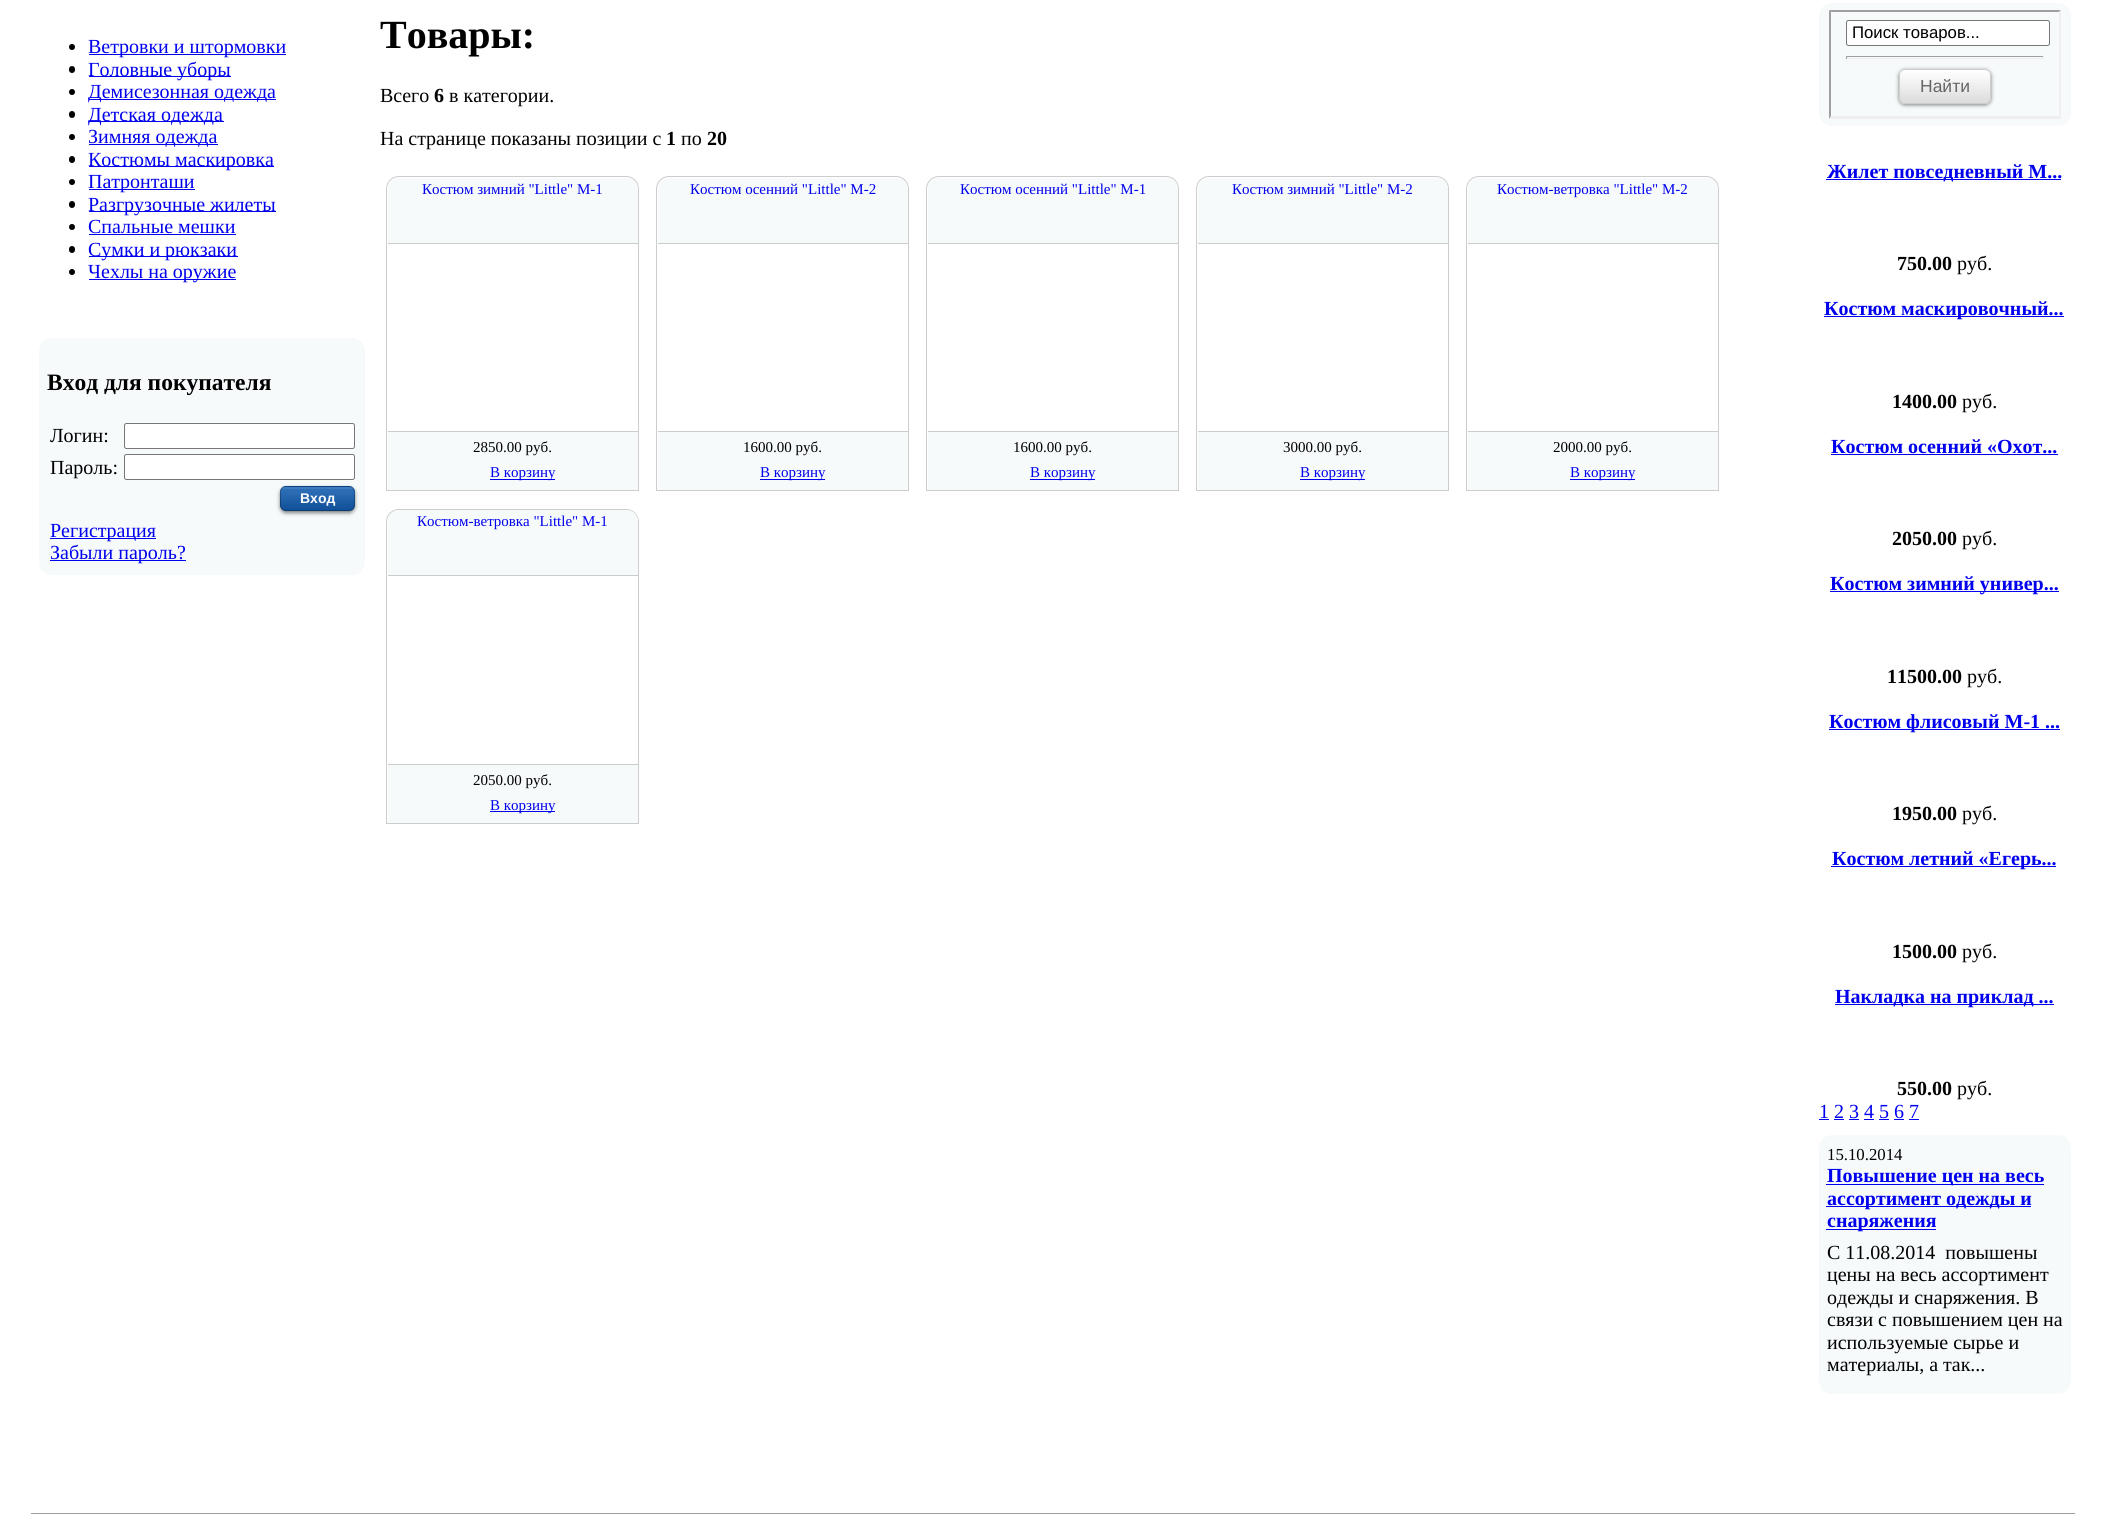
#include <cairo.h>
#include <math.h>
#include <stddef.h>


static void round_rect(cairo_t *cr, double x, double y, double w, double h, double r) {
    cairo_new_sub_path(cr);
    cairo_arc(cr, x + w - r, y + h - r, r, 0, M_PI / 2);
    cairo_arc(cr, x + r, y + h - r, r, M_PI / 2, M_PI);
    cairo_arc(cr, x + r, y + r, r, M_PI, 1.5 * M_PI);
    cairo_arc(cr, x + w - r, y + r, r, 1.5 * M_PI, 2 * M_PI);
    cairo_close_path(cr);
}

static void shadow(cairo_t *cr, double x, double y, double w, double h, double r, double blur, double alpha) {
    cairo_push_group_with_content(cr, CAIRO_CONTENT_ALPHA);
    cairo_set_operator(cr, CAIRO_OPERATOR_SOURCE);
    for (int i = 15; i >= -15 && fmin(w, h) + blur * i / 3 > 0; i -= 2) {
        double e = blur * i / 6;
        cairo_set_source_rgba(cr, 0, 0, 0, alpha * erfc((i - 1) / 8.5) / 2);
        round_rect(cr, x - e, y - e, w + 2 * e, h + 2 * e, fmax(0, fmin(r + e + blur * .6, fmin(w, h) / 2 + e)));
        cairo_fill(cr);
    }
    cairo_pattern_t *soft = cairo_pop_group(cr);
    cairo_mask(cr, soft);
    cairo_pattern_destroy(soft);
}

static void picture(cairo_t *cr, const char *path, double x, double y, double w, double h) {
    cairo_surface_t *image = cairo_image_surface_create_from_png(path);
    cairo_save(cr);
    cairo_set_source_surface(cr, image, x, y);
    cairo_rectangle(cr, x, y, w, h);
    cairo_fill(cr);
    cairo_restore(cr);
    cairo_surface_destroy(image);
}

int main(void) {
    cairo_surface_t *surface = cairo_image_surface_create(CAIRO_FORMAT_RGB24, 2107, 1521);
    cairo_t *cr = cairo_create(surface);
    cairo_font_options_t *options = cairo_font_options_create();
    cairo_font_options_set_hint_metrics(options, CAIRO_HINT_METRICS_OFF);
    cairo_font_options_set_hint_style(options, CAIRO_HINT_STYLE_NONE);
    cairo_set_font_options(cr, options);
    cairo_set_miter_limit(cr, 4);
    cairo_set_source_rgb(cr, 1, 1, 1);
    cairo_paint(cr);
    cairo_set_source_rgb(cr, 0, 0, 0);
    cairo_arc(cr, 72, 47, 3, 0, 2 * M_PI);
    cairo_fill(cr);
    cairo_set_source_rgb(cr, 0, 0, 0.933);
    cairo_rectangle(cr, 89, 54, 197, 1);
    cairo_fill(cr);
    cairo_select_font_face(cr, "Liberation Serif", CAIRO_FONT_SLANT_NORMAL, CAIRO_FONT_WEIGHT_NORMAL);
    cairo_set_font_size(cr, 20);
    cairo_move_to(cr, 88, 53);
    cairo_show_text(cr, "Ветровки и штормовки");
    cairo_set_source_rgb(cr, 0, 0, 0);
    round_rect(cr, 69, 66, 6, 7, 3);
    cairo_fill(cr);
    cairo_set_source_rgb(cr, 0, 0, 0.933);
    cairo_rectangle(cr, 89, 76, 142, 1);
    cairo_fill(cr);
    cairo_move_to(cr, 88, 76);
    cairo_show_text(cr, "Головные уборы");
    cairo_set_source_rgb(cr, 0, 0, 0);
    cairo_new_path(cr);
    cairo_arc(cr, 72, 92, 3, 0, 2 * M_PI);
    cairo_fill(cr);
    cairo_set_source_rgb(cr, 0, 0, 0.933);
    cairo_rectangle(cr, 89, 99, 187, 1);
    cairo_fill(cr);
    cairo_move_to(cr, 88, 98);
    cairo_show_text(cr, "Демисезонная одежда");
    cairo_set_source_rgb(cr, 0, 0, 0);
    round_rect(cr, 69, 111, 6, 7, 3);
    cairo_fill(cr);
    cairo_set_source_rgb(cr, 0, 0, 0.933);
    cairo_rectangle(cr, 89, 121, 135, 1);
    cairo_fill(cr);
    cairo_move_to(cr, 88, 121);
    cairo_show_text(cr, "Детская одежда");
    cairo_set_source_rgb(cr, 0, 0, 0);
    cairo_new_path(cr);
    cairo_arc(cr, 72, 137, 3, 0, 2 * M_PI);
    cairo_fill(cr);
    cairo_set_source_rgb(cr, 0, 0, 0.933);
    cairo_rectangle(cr, 89, 144, 129, 1);
    cairo_fill(cr);
    cairo_move_to(cr, 88, 143);
    cairo_show_text(cr, "Зимняя одежда");
    cairo_set_source_rgb(cr, 0, 0, 0);
    round_rect(cr, 69, 156, 6, 7, 3);
    cairo_fill(cr);
    cairo_set_source_rgb(cr, 0, 0, 0.933);
    cairo_rectangle(cr, 89, 166, 185, 1);
    cairo_fill(cr);
    cairo_move_to(cr, 88, 166);
    cairo_show_text(cr, "Костюмы маскировка");
    cairo_set_source_rgb(cr, 0, 0, 0);
    cairo_new_path(cr);
    cairo_arc(cr, 72, 182, 3, 0, 2 * M_PI);
    cairo_fill(cr);
    cairo_set_source_rgb(cr, 0, 0, 0.933);
    cairo_rectangle(cr, 89, 189, 106, 1);
    cairo_fill(cr);
    cairo_move_to(cr, 88, 188);
    cairo_show_text(cr, "Патронташи");
    cairo_set_source_rgb(cr, 0, 0, 0);
    round_rect(cr, 69, 201, 6, 7, 3);
    cairo_fill(cr);
    cairo_set_source_rgb(cr, 0, 0, 0.933);
    cairo_rectangle(cr, 89, 211, 187, 1);
    cairo_fill(cr);
    cairo_move_to(cr, 88, 211);
    cairo_show_text(cr, "Разгрузочные жилеты");
    cairo_set_source_rgb(cr, 0, 0, 0);
    cairo_new_path(cr);
    cairo_arc(cr, 72, 227, 3, 0, 2 * M_PI);
    cairo_fill(cr);
    cairo_set_source_rgb(cr, 0, 0, 0.933);
    cairo_move_to(cr, 88, 233);
    cairo_show_text(cr, "Спальные мешки");
    cairo_rectangle(cr, 89, 234, 147, 1);
    cairo_fill(cr);
    cairo_set_source_rgb(cr, 0, 0, 0);
    round_rect(cr, 69, 246, 6, 7, 3);
    cairo_fill(cr);
    cairo_set_source_rgb(cr, 0, 0, 0.933);
    cairo_rectangle(cr, 89, 256, 149, 1);
    cairo_fill(cr);
    cairo_move_to(cr, 88, 256);
    cairo_show_text(cr, "Сумки и рюкзаки");
    cairo_set_source_rgb(cr, 0, 0, 0);
    cairo_new_path(cr);
    cairo_arc(cr, 72, 272, 3, 0, 2 * M_PI);
    cairo_fill(cr);
    cairo_set_source_rgb(cr, 0, 0, 0.933);
    cairo_rectangle(cr, 89, 279, 147, 1);
    cairo_fill(cr);
    cairo_move_to(cr, 88, 278);
    cairo_show_text(cr, "Чехлы на оружие");
    cairo_set_source_rgb(cr, 0.961, 0.98, 0.98);
    round_rect(cr, 39, 338, 326, 237, 13);
    cairo_fill(cr);
    cairo_select_font_face(cr, "Liberation Serif", CAIRO_FONT_SLANT_NORMAL, CAIRO_FONT_WEIGHT_BOLD);
    cairo_set_font_size(cr, 23.5);
    cairo_set_source_rgb(cr, 0, 0, 0);
    cairo_move_to(cr, 47, 390);
    cairo_show_text(cr, "Вход для покупателя");
    cairo_select_font_face(cr, "Liberation Serif", CAIRO_FONT_SLANT_NORMAL, CAIRO_FONT_WEIGHT_NORMAL);
    cairo_set_font_size(cr, 20);
    cairo_move_to(cr, 50, 442);
    cairo_show_text(cr, "Логин:");
    cairo_set_source_rgb(cr, 1, 1, 1);
    round_rect(cr, 124.5, 423.5, 230, 25, 2);
    cairo_fill_preserve(cr);
    cairo_set_source_rgb(cr, 0.463, 0.463, 0.463);
    cairo_set_line_width(cr, 1);
    cairo_stroke(cr);
    cairo_set_source_rgb(cr, 0, 0, 0);
    cairo_move_to(cr, 50, 474);
    cairo_show_text(cr, "Пароль:");
    cairo_set_source_rgb(cr, 1, 1, 1);
    round_rect(cr, 124.5, 454.5, 230, 25, 2);
    cairo_fill_preserve(cr);
    cairo_set_source_rgb(cr, 0.463, 0.463, 0.463);
    cairo_stroke(cr);
    cairo_set_source_rgb(cr, 0, 0, 0);
    shadow(cr, 280, 488, 75, 25, 6, 2, 0.5);
    cairo_set_source_rgb(cr, 0.055, 0.349, 0.682);
    round_rect(cr, 280, 486, 75, 25, 6);
    cairo_fill(cr);
    picture(cr, "img1.png", 280, 487, 75, 24);
    round_rect(cr, 280.5, 486.5, 74, 24, 5.5);
    cairo_set_source_rgba(cr, 0, 0, 0, 0.25);
    cairo_stroke(cr);
    cairo_select_font_face(cr, "Liberation Sans", CAIRO_FONT_SLANT_NORMAL, CAIRO_FONT_WEIGHT_BOLD);
    cairo_set_font_size(cr, 14);
    cairo_set_source_rgb(cr, 1, 1, 1);
    cairo_move_to(cr, 300, 503);
    cairo_show_text(cr, "Вход");
    cairo_set_source_rgb(cr, 0, 0, 0.933);
    cairo_rectangle(cr, 50, 538, 106, 1);
    cairo_fill(cr);
    cairo_select_font_face(cr, "Liberation Serif", CAIRO_FONT_SLANT_NORMAL, CAIRO_FONT_WEIGHT_NORMAL);
    cairo_set_font_size(cr, 20);
    cairo_move_to(cr, 50, 537);
    cairo_show_text(cr, "Регистрация");
    cairo_rectangle(cr, 50, 560, 136, 1);
    cairo_fill(cr);
    cairo_move_to(cr, 50, 559);
    cairo_show_text(cr, "Забыли пароль?");
    cairo_select_font_face(cr, "Liberation Serif", CAIRO_FONT_SLANT_NORMAL, CAIRO_FONT_WEIGHT_BOLD);
    cairo_set_font_size(cr, 40);
    cairo_set_source_rgb(cr, 0, 0, 0);
    cairo_move_to(cr, 380, 48);
    cairo_show_text(cr, "Товары:");
    cairo_select_font_face(cr, "Liberation Serif", CAIRO_FONT_SLANT_NORMAL, CAIRO_FONT_WEIGHT_NORMAL);
    cairo_set_font_size(cr, 20);
    cairo_move_to(cr, 380, 102);
    cairo_show_text(cr, "Всего");
    cairo_select_font_face(cr, "Liberation Serif", CAIRO_FONT_SLANT_NORMAL, CAIRO_FONT_WEIGHT_BOLD);
    cairo_move_to(cr, 434, 102);
    cairo_show_text(cr, "6");
    cairo_select_font_face(cr, "Liberation Serif", CAIRO_FONT_SLANT_NORMAL, CAIRO_FONT_WEIGHT_NORMAL);
    cairo_move_to(cr, 449, 102);
    cairo_show_text(cr, "в категории.");
    cairo_move_to(cr, 380, 145);
    cairo_show_text(cr, "На странице показаны позиции с");
    cairo_select_font_face(cr, "Liberation Serif", CAIRO_FONT_SLANT_NORMAL, CAIRO_FONT_WEIGHT_BOLD);
    cairo_move_to(cr, 666, 145);
    cairo_show_text(cr, "1");
    cairo_select_font_face(cr, "Liberation Serif", CAIRO_FONT_SLANT_NORMAL, CAIRO_FONT_WEIGHT_NORMAL);
    cairo_move_to(cr, 681, 145);
    cairo_show_text(cr, "по");
    cairo_select_font_face(cr, "Liberation Serif", CAIRO_FONT_SLANT_NORMAL, CAIRO_FONT_WEIGHT_BOLD);
    cairo_move_to(cr, 707, 145);
    cairo_show_text(cr, "20");
    cairo_new_path(cr);
    cairo_move_to(cr, 399, 176.5);
    cairo_line_to(cr, 626, 176.5);
    cairo_curve_to(cr, 633, 176.5, 638.5, 182, 638.5, 189);
    cairo_line_to(cr, 638.5, 490.5);
    cairo_line_to(cr, 386.5, 490.5);
    cairo_line_to(cr, 386.5, 189);
    cairo_curve_to(cr, 386.5, 182, 392, 176.5, 399, 176.5);
    cairo_close_path(cr);
    cairo_set_source_rgb(cr, 0.8, 0.8, 0.8);
    cairo_stroke(cr);
    cairo_set_source_rgb(cr, 0.961, 0.98, 0.98);
    cairo_new_path(cr);
    cairo_move_to(cr, 399, 178);
    cairo_line_to(cr, 627, 178);
    cairo_curve_to(cr, 633, 178, 638, 183, 638, 189);
    cairo_line_to(cr, 638, 244);
    cairo_line_to(cr, 388, 244);
    cairo_line_to(cr, 388, 189);
    cairo_curve_to(cr, 388, 183, 393, 178, 399, 178);
    cairo_close_path(cr);
    cairo_fill(cr);
    cairo_set_source_rgb(cr, 0.8, 0.8, 0.8);
    cairo_rectangle(cr, 388, 243, 250, 1);
    cairo_fill(cr);
    cairo_select_font_face(cr, "Liberation Serif", CAIRO_FONT_SLANT_NORMAL, CAIRO_FONT_WEIGHT_NORMAL);
    cairo_set_font_size(cr, 15);
    cairo_set_source_rgb(cr, 0, 0, 0.933);
    cairo_move_to(cr, 422, 194);
    cairo_show_text(cr, "Костюм зимний \"Little\" М-1");
    cairo_set_source_rgb(cr, 0.961, 0.98, 0.98);
    cairo_rectangle(cr, 388, 432, 250, 58);
    cairo_fill(cr);
    cairo_set_source_rgb(cr, 0.8, 0.8, 0.8);
    cairo_rectangle(cr, 388, 431, 250, 1);
    cairo_fill(cr);
    cairo_set_source_rgb(cr, 0, 0, 0);
    cairo_move_to(cr, 473, 452);
    cairo_show_text(cr, "2850.00 руб.");
    cairo_set_source_rgb(cr, 0, 0, 0.933);
    cairo_rectangle(cr, 490, 479, 65, 1);
    cairo_fill(cr);
    cairo_move_to(cr, 490, 477);
    cairo_show_text(cr, "В корзину");
    cairo_new_path(cr);
    cairo_move_to(cr, 669, 176.5);
    cairo_line_to(cr, 896, 176.5);
    cairo_curve_to(cr, 903, 176.5, 908.5, 182, 908.5, 189);
    cairo_line_to(cr, 908.5, 490.5);
    cairo_line_to(cr, 656.5, 490.5);
    cairo_line_to(cr, 656.5, 189);
    cairo_curve_to(cr, 656.5, 182, 662, 176.5, 669, 176.5);
    cairo_close_path(cr);
    cairo_set_source_rgb(cr, 0.8, 0.8, 0.8);
    cairo_stroke(cr);
    cairo_set_source_rgb(cr, 0.961, 0.98, 0.98);
    cairo_new_path(cr);
    cairo_move_to(cr, 669, 178);
    cairo_line_to(cr, 897, 178);
    cairo_curve_to(cr, 903, 178, 908, 183, 908, 189);
    cairo_line_to(cr, 908, 244);
    cairo_line_to(cr, 658, 244);
    cairo_line_to(cr, 658, 189);
    cairo_curve_to(cr, 658, 183, 663, 178, 669, 178);
    cairo_close_path(cr);
    cairo_fill(cr);
    cairo_set_source_rgb(cr, 0.8, 0.8, 0.8);
    cairo_rectangle(cr, 658, 243, 250, 1);
    cairo_fill(cr);
    cairo_set_source_rgb(cr, 0, 0, 0.933);
    cairo_move_to(cr, 690, 194);
    cairo_show_text(cr, "Костюм осенний \"Little\" М-2");
    cairo_set_source_rgb(cr, 0.961, 0.98, 0.98);
    cairo_rectangle(cr, 658, 432, 250, 58);
    cairo_fill(cr);
    cairo_set_source_rgb(cr, 0.8, 0.8, 0.8);
    cairo_rectangle(cr, 658, 431, 250, 1);
    cairo_fill(cr);
    cairo_set_source_rgb(cr, 0, 0, 0);
    cairo_move_to(cr, 743, 452);
    cairo_show_text(cr, "1600.00 руб.");
    cairo_set_source_rgb(cr, 0, 0, 0.933);
    cairo_rectangle(cr, 760, 479, 65, 1);
    cairo_fill(cr);
    cairo_move_to(cr, 760, 477);
    cairo_show_text(cr, "В корзину");
    cairo_new_path(cr);
    cairo_move_to(cr, 939, 176.5);
    cairo_line_to(cr, 1166, 176.5);
    cairo_curve_to(cr, 1173, 176.5, 1178.5, 182, 1178.5, 189);
    cairo_line_to(cr, 1178.5, 490.5);
    cairo_line_to(cr, 926.5, 490.5);
    cairo_line_to(cr, 926.5, 189);
    cairo_curve_to(cr, 926.5, 182, 932, 176.5, 939, 176.5);
    cairo_close_path(cr);
    cairo_set_source_rgb(cr, 0.8, 0.8, 0.8);
    cairo_stroke(cr);
    cairo_set_source_rgb(cr, 0.961, 0.98, 0.98);
    cairo_new_path(cr);
    cairo_move_to(cr, 939, 178);
    cairo_line_to(cr, 1167, 178);
    cairo_curve_to(cr, 1173, 178, 1178, 183, 1178, 189);
    cairo_line_to(cr, 1178, 244);
    cairo_line_to(cr, 928, 244);
    cairo_line_to(cr, 928, 189);
    cairo_curve_to(cr, 928, 183, 933, 178, 939, 178);
    cairo_close_path(cr);
    cairo_fill(cr);
    cairo_set_source_rgb(cr, 0.8, 0.8, 0.8);
    cairo_rectangle(cr, 928, 243, 250, 1);
    cairo_fill(cr);
    cairo_set_source_rgb(cr, 0, 0, 0.933);
    cairo_move_to(cr, 960, 194);
    cairo_show_text(cr, "Костюм осенний \"Little\" М-1");
    cairo_set_source_rgb(cr, 0.961, 0.98, 0.98);
    cairo_rectangle(cr, 928, 432, 250, 58);
    cairo_fill(cr);
    cairo_set_source_rgb(cr, 0.8, 0.8, 0.8);
    cairo_rectangle(cr, 928, 431, 250, 1);
    cairo_fill(cr);
    cairo_set_source_rgb(cr, 0, 0, 0);
    cairo_move_to(cr, 1013, 452);
    cairo_show_text(cr, "1600.00 руб.");
    cairo_set_source_rgb(cr, 0, 0, 0.933);
    cairo_rectangle(cr, 1030, 479, 65, 1);
    cairo_fill(cr);
    cairo_move_to(cr, 1030, 477);
    cairo_show_text(cr, "В корзину");
    cairo_new_path(cr);
    cairo_move_to(cr, 1209, 176.5);
    cairo_line_to(cr, 1436, 176.5);
    cairo_curve_to(cr, 1443, 176.5, 1448.5, 182, 1448.5, 189);
    cairo_line_to(cr, 1448.5, 490.5);
    cairo_line_to(cr, 1196.5, 490.5);
    cairo_line_to(cr, 1196.5, 189);
    cairo_curve_to(cr, 1196.5, 182, 1202, 176.5, 1209, 176.5);
    cairo_close_path(cr);
    cairo_set_source_rgb(cr, 0.8, 0.8, 0.8);
    cairo_stroke(cr);
    cairo_set_source_rgb(cr, 0.961, 0.98, 0.98);
    cairo_new_path(cr);
    cairo_move_to(cr, 1209, 178);
    cairo_line_to(cr, 1437, 178);
    cairo_curve_to(cr, 1443, 178, 1448, 183, 1448, 189);
    cairo_line_to(cr, 1448, 244);
    cairo_line_to(cr, 1198, 244);
    cairo_line_to(cr, 1198, 189);
    cairo_curve_to(cr, 1198, 183, 1203, 178, 1209, 178);
    cairo_close_path(cr);
    cairo_fill(cr);
    cairo_set_source_rgb(cr, 0.8, 0.8, 0.8);
    cairo_rectangle(cr, 1198, 243, 250, 1);
    cairo_fill(cr);
    cairo_set_source_rgb(cr, 0, 0, 0.933);
    cairo_move_to(cr, 1232, 194);
    cairo_show_text(cr, "Костюм зимний \"Little\" М-2");
    cairo_set_source_rgb(cr, 0.961, 0.98, 0.98);
    cairo_rectangle(cr, 1198, 432, 250, 58);
    cairo_fill(cr);
    cairo_set_source_rgb(cr, 0.8, 0.8, 0.8);
    cairo_rectangle(cr, 1198, 431, 250, 1);
    cairo_fill(cr);
    cairo_set_source_rgb(cr, 0, 0, 0);
    cairo_move_to(cr, 1283, 452);
    cairo_show_text(cr, "3000.00 руб.");
    cairo_set_source_rgb(cr, 0, 0, 0.933);
    cairo_rectangle(cr, 1300, 479, 65, 1);
    cairo_fill(cr);
    cairo_move_to(cr, 1300, 477);
    cairo_show_text(cr, "В корзину");
    cairo_new_path(cr);
    cairo_move_to(cr, 1479, 176.5);
    cairo_line_to(cr, 1706, 176.5);
    cairo_curve_to(cr, 1713, 176.5, 1718.5, 182, 1718.5, 189);
    cairo_line_to(cr, 1718.5, 490.5);
    cairo_line_to(cr, 1466.5, 490.5);
    cairo_line_to(cr, 1466.5, 189);
    cairo_curve_to(cr, 1466.5, 182, 1472, 176.5, 1479, 176.5);
    cairo_close_path(cr);
    cairo_set_source_rgb(cr, 0.8, 0.8, 0.8);
    cairo_stroke(cr);
    cairo_set_source_rgb(cr, 0.961, 0.98, 0.98);
    cairo_new_path(cr);
    cairo_move_to(cr, 1479, 178);
    cairo_line_to(cr, 1707, 178);
    cairo_curve_to(cr, 1713, 178, 1718, 183, 1718, 189);
    cairo_line_to(cr, 1718, 244);
    cairo_line_to(cr, 1468, 244);
    cairo_line_to(cr, 1468, 189);
    cairo_curve_to(cr, 1468, 183, 1473, 178, 1479, 178);
    cairo_close_path(cr);
    cairo_fill(cr);
    cairo_set_source_rgb(cr, 0.8, 0.8, 0.8);
    cairo_rectangle(cr, 1468, 243, 250, 1);
    cairo_fill(cr);
    cairo_set_source_rgb(cr, 0, 0, 0.933);
    cairo_move_to(cr, 1497, 194);
    cairo_show_text(cr, "Костюм-ветровка \"Little\" М-2");
    cairo_set_source_rgb(cr, 0.961, 0.98, 0.98);
    cairo_rectangle(cr, 1468, 432, 250, 58);
    cairo_fill(cr);
    cairo_set_source_rgb(cr, 0.8, 0.8, 0.8);
    cairo_rectangle(cr, 1468, 431, 250, 1);
    cairo_fill(cr);
    cairo_set_source_rgb(cr, 0, 0, 0);
    cairo_move_to(cr, 1553, 452);
    cairo_show_text(cr, "2000.00 руб.");
    cairo_set_source_rgb(cr, 0, 0, 0.933);
    cairo_rectangle(cr, 1570, 479, 65, 1);
    cairo_fill(cr);
    cairo_move_to(cr, 1570, 477);
    cairo_show_text(cr, "В корзину");
    cairo_new_path(cr);
    cairo_move_to(cr, 399, 509.5);
    cairo_line_to(cr, 626, 509.5);
    cairo_curve_to(cr, 633, 509.5, 638.5, 515, 638.5, 522);
    cairo_line_to(cr, 638.5, 823.5);
    cairo_line_to(cr, 386.5, 823.5);
    cairo_line_to(cr, 386.5, 522);
    cairo_curve_to(cr, 386.5, 515, 392, 509.5, 399, 509.5);
    cairo_close_path(cr);
    cairo_set_source_rgb(cr, 0.8, 0.8, 0.8);
    cairo_stroke(cr);
    cairo_set_source_rgb(cr, 0.961, 0.98, 0.98);
    cairo_new_path(cr);
    cairo_move_to(cr, 399, 510);
    cairo_line_to(cr, 627, 510);
    cairo_curve_to(cr, 633, 510, 638, 515, 638, 521);
    cairo_line_to(cr, 638, 576);
    cairo_line_to(cr, 388, 576);
    cairo_line_to(cr, 388, 521);
    cairo_curve_to(cr, 388, 515, 393, 510, 399, 510);
    cairo_close_path(cr);
    cairo_fill(cr);
    cairo_set_source_rgb(cr, 0.8, 0.8, 0.8);
    cairo_rectangle(cr, 388, 575, 250, 1);
    cairo_fill(cr);
    cairo_set_source_rgb(cr, 0, 0, 0.933);
    cairo_move_to(cr, 417, 526);
    cairo_show_text(cr, "Костюм-ветровка \"Little\" М-1");
    cairo_set_source_rgb(cr, 0.961, 0.98, 0.98);
    cairo_rectangle(cr, 388, 765, 250, 58);
    cairo_fill(cr);
    cairo_set_source_rgb(cr, 0.8, 0.8, 0.8);
    cairo_rectangle(cr, 388, 764, 250, 1);
    cairo_fill(cr);
    cairo_set_source_rgb(cr, 0, 0, 0);
    cairo_move_to(cr, 473, 785);
    cairo_show_text(cr, "2050.00 руб.");
    cairo_set_source_rgb(cr, 0, 0, 0.933);
    cairo_rectangle(cr, 490, 811, 65, 1);
    cairo_fill(cr);
    cairo_move_to(cr, 490, 810);
    cairo_show_text(cr, "В корзину");
    cairo_set_source_rgb(cr, 0.961, 0.98, 0.98);
    round_rect(cr, 1819, 3, 252, 123, 13);
    cairo_fill(cr);
    cairo_set_source_rgb(cr, 0.624, 0.624, 0.624);
    cairo_new_path(cr);
    cairo_move_to(cr, 1829, 10);
    cairo_line_to(cr, 2061, 10);
    cairo_line_to(cr, 2059, 12);
    cairo_line_to(cr, 1831, 12);
    cairo_close_path(cr);
    cairo_fill(cr);
    cairo_set_source_rgb(cr, 0.937, 0.937, 0.937);
    cairo_new_path(cr);
    cairo_move_to(cr, 2061, 10);
    cairo_line_to(cr, 2061, 119);
    cairo_line_to(cr, 2059, 116);
    cairo_line_to(cr, 2059, 12);
    cairo_close_path(cr);
    cairo_fill(cr);
    cairo_new_path(cr);
    cairo_move_to(cr, 2061, 119);
    cairo_line_to(cr, 1829, 119);
    cairo_line_to(cr, 1831, 116);
    cairo_line_to(cr, 2059, 116);
    cairo_close_path(cr);
    cairo_fill(cr);
    cairo_set_source_rgb(cr, 0.624, 0.624, 0.624);
    cairo_new_path(cr);
    cairo_move_to(cr, 1829, 119);
    cairo_line_to(cr, 1829, 10);
    cairo_line_to(cr, 1831, 12);
    cairo_line_to(cr, 1831, 116);
    cairo_close_path(cr);
    cairo_fill(cr);
    cairo_set_source_rgb(cr, 1, 1, 1);
    round_rect(cr, 1846.5, 20.5, 203, 25, 2);
    cairo_fill_preserve(cr);
    cairo_set_source_rgb(cr, 0.463, 0.463, 0.463);
    cairo_stroke(cr);
    cairo_select_font_face(cr, "Liberation Sans", CAIRO_FONT_SLANT_NORMAL, CAIRO_FONT_WEIGHT_NORMAL);
    cairo_set_font_size(cr, 16.75);
    cairo_set_source_rgb(cr, 0, 0, 0);
    cairo_move_to(cr, 1852, 38);
    cairo_show_text(cr, "Поиск товаров...");
    cairo_set_source_rgb(cr, 0.624, 0.624, 0.624);
    cairo_rectangle(cr, 1846, 56, 198, 1);
    cairo_fill(cr);
    cairo_set_source_rgb(cr, 0.933, 0.933, 0.933);
    cairo_rectangle(cr, 2043, 56, 1, 3);
    cairo_fill(cr);
    cairo_rectangle(cr, 1846, 58, 198, 1);
    cairo_fill(cr);
    cairo_set_source_rgb(cr, 0.624, 0.624, 0.624);
    cairo_rectangle(cr, 1846, 56, 1, 3);
    cairo_fill(cr);
    cairo_set_source_rgb(cr, 0, 0, 0);
    shadow(cr, 1899, 70, 92, 35, 6, 2, 0.5);
    cairo_set_source_rgb(cr, 1, 1, 1);
    round_rect(cr, 1899, 69, 92, 35, 6);
    cairo_fill(cr);
    picture(cr, "img2.png", 1899, 70, 92, 34);
    round_rect(cr, 1899.5, 69.5, 91, 34, 5.5);
    cairo_set_source_rgb(cr, 0.8, 0.8, 0.8);
    cairo_stroke(cr);
    cairo_set_font_size(cr, 17.5);
    cairo_set_source_rgb(cr, 0.4, 0.4, 0.4);
    cairo_move_to(cr, 1920, 92);
    cairo_show_text(cr, "Найти");
    cairo_set_source_rgb(cr, 0, 0, 0.933);
    cairo_rectangle(cr, 1826, 179, 235, 1);
    cairo_fill(cr);
    cairo_select_font_face(cr, "Liberation Serif", CAIRO_FONT_SLANT_NORMAL, CAIRO_FONT_WEIGHT_BOLD);
    cairo_set_font_size(cr, 20);
    cairo_move_to(cr, 1827, 178);
    cairo_show_text(cr, "Жилет повседневный М...");
    cairo_set_source_rgb(cr, 0, 0, 0);
    cairo_move_to(cr, 1897, 270);
    cairo_show_text(cr, "750.00");
    cairo_select_font_face(cr, "Liberation Serif", CAIRO_FONT_SLANT_NORMAL, CAIRO_FONT_WEIGHT_NORMAL);
    cairo_move_to(cr, 1957, 270);
    cairo_show_text(cr, "руб.");
    cairo_set_source_rgb(cr, 0, 0, 0.933);
    cairo_rectangle(cr, 1824, 316, 240, 1);
    cairo_fill(cr);
    cairo_select_font_face(cr, "Liberation Serif", CAIRO_FONT_SLANT_NORMAL, CAIRO_FONT_WEIGHT_BOLD);
    cairo_move_to(cr, 1824, 315);
    cairo_show_text(cr, "Костюм маскировочный...");
    cairo_set_source_rgb(cr, 0, 0, 0);
    cairo_move_to(cr, 1892, 408);
    cairo_show_text(cr, "1400.00");
    cairo_select_font_face(cr, "Liberation Serif", CAIRO_FONT_SLANT_NORMAL, CAIRO_FONT_WEIGHT_NORMAL);
    cairo_move_to(cr, 1962, 408);
    cairo_show_text(cr, "руб.");
    cairo_select_font_face(cr, "Liberation Serif", CAIRO_FONT_SLANT_NORMAL, CAIRO_FONT_WEIGHT_BOLD);
    cairo_set_source_rgb(cr, 0, 0, 0.933);
    cairo_move_to(cr, 1831, 453);
    cairo_show_text(cr, "Костюм осенний «Охот...");
    cairo_rectangle(cr, 1831, 454, 227, 1);
    cairo_fill(cr);
    cairo_set_source_rgb(cr, 0, 0, 0);
    cairo_move_to(cr, 1892, 545);
    cairo_show_text(cr, "2050.00");
    cairo_select_font_face(cr, "Liberation Serif", CAIRO_FONT_SLANT_NORMAL, CAIRO_FONT_WEIGHT_NORMAL);
    cairo_move_to(cr, 1962, 545);
    cairo_show_text(cr, "руб.");
    cairo_set_source_rgb(cr, 0, 0, 0.933);
    cairo_rectangle(cr, 1830, 591, 229, 1);
    cairo_fill(cr);
    cairo_select_font_face(cr, "Liberation Serif", CAIRO_FONT_SLANT_NORMAL, CAIRO_FONT_WEIGHT_BOLD);
    cairo_move_to(cr, 1830, 590);
    cairo_show_text(cr, "Костюм зимний универ...");
    cairo_set_source_rgb(cr, 0, 0, 0);
    cairo_move_to(cr, 1887, 683);
    cairo_show_text(cr, "11500.00");
    cairo_select_font_face(cr, "Liberation Serif", CAIRO_FONT_SLANT_NORMAL, CAIRO_FONT_WEIGHT_NORMAL);
    cairo_move_to(cr, 1967, 683);
    cairo_show_text(cr, "руб.");
    cairo_set_source_rgb(cr, 0, 0, 0.933);
    cairo_rectangle(cr, 1829, 729, 231, 1);
    cairo_fill(cr);
    cairo_select_font_face(cr, "Liberation Serif", CAIRO_FONT_SLANT_NORMAL, CAIRO_FONT_WEIGHT_BOLD);
    cairo_move_to(cr, 1829, 728);
    cairo_show_text(cr, "Костюм флисовый М-1 ...");
    cairo_set_source_rgb(cr, 0, 0, 0);
    cairo_move_to(cr, 1892, 820);
    cairo_show_text(cr, "1950.00");
    cairo_select_font_face(cr, "Liberation Serif", CAIRO_FONT_SLANT_NORMAL, CAIRO_FONT_WEIGHT_NORMAL);
    cairo_move_to(cr, 1962, 820);
    cairo_show_text(cr, "руб.");
    cairo_set_source_rgb(cr, 0, 0, 0.933);
    cairo_rectangle(cr, 1831, 866, 225, 1);
    cairo_fill(cr);
    cairo_select_font_face(cr, "Liberation Serif", CAIRO_FONT_SLANT_NORMAL, CAIRO_FONT_WEIGHT_BOLD);
    cairo_move_to(cr, 1832, 865);
    cairo_show_text(cr, "Костюм летний «Егерь...");
    cairo_set_source_rgb(cr, 0, 0, 0);
    cairo_move_to(cr, 1892, 958);
    cairo_show_text(cr, "1500.00");
    cairo_select_font_face(cr, "Liberation Serif", CAIRO_FONT_SLANT_NORMAL, CAIRO_FONT_WEIGHT_NORMAL);
    cairo_move_to(cr, 1962, 958);
    cairo_show_text(cr, "руб.");
    cairo_set_source_rgb(cr, 0, 0, 0.933);
    cairo_rectangle(cr, 1835, 1004, 219, 1);
    cairo_fill(cr);
    cairo_select_font_face(cr, "Liberation Serif", CAIRO_FONT_SLANT_NORMAL, CAIRO_FONT_WEIGHT_BOLD);
    cairo_move_to(cr, 1835, 1003);
    cairo_show_text(cr, "Накладка на приклад ...");
    cairo_set_source_rgb(cr, 0, 0, 0);
    cairo_move_to(cr, 1897, 1095);
    cairo_show_text(cr, "550.00");
    cairo_select_font_face(cr, "Liberation Serif", CAIRO_FONT_SLANT_NORMAL, CAIRO_FONT_WEIGHT_NORMAL);
    cairo_move_to(cr, 1957, 1095);
    cairo_show_text(cr, "руб.");
    cairo_set_source_rgb(cr, 0, 0, 0.933);
    cairo_move_to(cr, 1819, 1118);
    cairo_show_text(cr, "1 2 3 4 5 6 7");
    cairo_rectangle(cr, 1819, 1119, 10, 1);
    cairo_fill(cr);
    cairo_rectangle(cr, 1834, 1119, 10, 1);
    cairo_fill(cr);
    cairo_rectangle(cr, 1849, 1119, 10, 1);
    cairo_fill(cr);
    cairo_rectangle(cr, 1864, 1119, 10, 1);
    cairo_fill(cr);
    cairo_rectangle(cr, 1879, 1119, 10, 1);
    cairo_fill(cr);
    cairo_rectangle(cr, 1894, 1119, 10, 1);
    cairo_fill(cr);
    cairo_rectangle(cr, 1909, 1119, 10, 1);
    cairo_fill(cr);
    cairo_set_source_rgb(cr, 0.961, 0.98, 0.98);
    round_rect(cr, 1819, 1135, 252, 259, 13);
    cairo_fill(cr);
    cairo_set_font_size(cr, 16.75);
    cairo_set_source_rgb(cr, 0, 0, 0);
    cairo_move_to(cr, 1827, 1160);
    cairo_show_text(cr, "15.10.2014");
    cairo_set_source_rgb(cr, 0, 0, 0.933);
    cairo_rectangle(cr, 1826, 1184, 218, 1);
    cairo_fill(cr);
    cairo_select_font_face(cr, "Liberation Serif", CAIRO_FONT_SLANT_NORMAL, CAIRO_FONT_WEIGHT_BOLD);
    cairo_set_font_size(cr, 20);
    cairo_move_to(cr, 1827, 1182);
    cairo_show_text(cr, "Повышение цен на весь");
    cairo_rectangle(cr, 1826, 1206, 205, 1);
    cairo_fill(cr);
    cairo_move_to(cr, 1827, 1205);
    cairo_show_text(cr, "ассортимент одежды и");
    cairo_rectangle(cr, 1826, 1229, 110, 1);
    cairo_fill(cr);
    cairo_move_to(cr, 1827, 1227);
    cairo_show_text(cr, "снаряжения");
    cairo_select_font_face(cr, "Liberation Serif", CAIRO_FONT_SLANT_NORMAL, CAIRO_FONT_WEIGHT_NORMAL);
    cairo_set_source_rgb(cr, 0, 0, 0);
    cairo_move_to(cr, 1827, 1259);
    cairo_show_text(cr, "C 11.08.2014  повышены");
    cairo_move_to(cr, 1827, 1281);
    cairo_show_text(cr, "цены на весь ассортимент");
    cairo_move_to(cr, 1827, 1304);
    cairo_show_text(cr, "одежды и снаряжения. В");
    cairo_move_to(cr, 1827, 1326);
    cairo_show_text(cr, "связи с повышением цен на");
    cairo_move_to(cr, 1827, 1349);
    cairo_show_text(cr, "используемые сырье и");
    cairo_move_to(cr, 1827, 1371);
    cairo_show_text(cr, "материалы, а так...");
    cairo_set_source_rgb(cr, 0.624, 0.624, 0.624);
    cairo_rectangle(cr, 31, 1513, 2045, 1);
    cairo_fill(cr);
    cairo_set_source_rgb(cr, 0.933, 0.933, 0.933);
    cairo_rectangle(cr, 2075, 1513, 1, 1);
    cairo_fill(cr);
    cairo_surface_write_to_png(surface, "page.png");
    cairo_font_options_destroy(options);
    cairo_destroy(cr);
    cairo_surface_destroy(surface);
    return 0;
}
